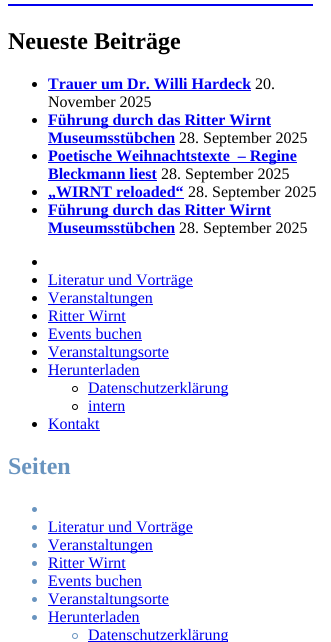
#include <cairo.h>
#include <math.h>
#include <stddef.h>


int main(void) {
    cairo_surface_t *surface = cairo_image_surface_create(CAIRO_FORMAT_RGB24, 331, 642);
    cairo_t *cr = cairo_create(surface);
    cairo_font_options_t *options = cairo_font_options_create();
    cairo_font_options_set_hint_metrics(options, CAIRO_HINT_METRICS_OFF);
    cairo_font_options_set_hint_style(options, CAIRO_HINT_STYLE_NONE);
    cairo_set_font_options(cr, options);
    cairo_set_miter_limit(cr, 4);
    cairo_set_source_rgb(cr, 1, 1, 1);
    cairo_paint(cr);
    cairo_set_source_rgb(cr, 0, 0, 0.933);
    cairo_rectangle(cr, 8, 4, 305, 2);
    cairo_fill(cr);
    cairo_select_font_face(cr, "Liberation Serif", CAIRO_FONT_SLANT_NORMAL, CAIRO_FONT_WEIGHT_BOLD);
    cairo_set_font_size(cr, 24);
    cairo_set_source_rgb(cr, 0, 0, 0);
    cairo_move_to(cr, 8, 49);
    cairo_show_text(cr, "Neueste Beiträge");
    cairo_new_path(cr);
    cairo_arc(cr, 34.5, 84.5, 2.5, 0, 2 * M_PI);
    cairo_fill(cr);
    cairo_set_font_size(cr, 16);
    cairo_set_source_rgb(cr, 0, 0, 0.933);
    cairo_move_to(cr, 48, 89);
    cairo_show_text(cr, "Trauer um Dr. Willi Hardeck");
    cairo_rectangle(cr, 48, 90, 203, 1);
    cairo_fill(cr);
    cairo_select_font_face(cr, "Liberation Serif", CAIRO_FONT_SLANT_NORMAL, CAIRO_FONT_WEIGHT_NORMAL);
    cairo_set_source_rgb(cr, 0, 0, 0);
    cairo_move_to(cr, 255, 89);
    cairo_show_text(cr, "20.");
    cairo_move_to(cr, 48, 107);
    cairo_show_text(cr, "November 2025");
    cairo_new_path(cr);
    cairo_arc(cr, 34.5, 120.5, 2.5, 0, 2 * M_PI);
    cairo_fill(cr);
    cairo_set_source_rgb(cr, 0, 0, 0.933);
    cairo_rectangle(cr, 48, 126, 223, 1);
    cairo_fill(cr);
    cairo_select_font_face(cr, "Liberation Serif", CAIRO_FONT_SLANT_NORMAL, CAIRO_FONT_WEIGHT_BOLD);
    cairo_move_to(cr, 48, 125);
    cairo_show_text(cr, "Führung durch das Ritter Wirnt");
    cairo_move_to(cr, 48, 143);
    cairo_show_text(cr, "Museumsstübchen");
    cairo_rectangle(cr, 48, 144, 127, 1);
    cairo_fill(cr);
    cairo_select_font_face(cr, "Liberation Serif", CAIRO_FONT_SLANT_NORMAL, CAIRO_FONT_WEIGHT_NORMAL);
    cairo_set_source_rgb(cr, 0, 0, 0);
    cairo_move_to(cr, 179, 143);
    cairo_show_text(cr, "28. September 2025");
    cairo_new_path(cr);
    cairo_arc(cr, 34.5, 156.5, 2.5, 0, 2 * M_PI);
    cairo_fill(cr);
    cairo_set_source_rgb(cr, 0, 0, 0.933);
    cairo_rectangle(cr, 48, 162, 249, 1);
    cairo_fill(cr);
    cairo_select_font_face(cr, "Liberation Serif", CAIRO_FONT_SLANT_NORMAL, CAIRO_FONT_WEIGHT_BOLD);
    cairo_move_to(cr, 48, 161);
    cairo_show_text(cr, "Poetische Weihnachtstexte  – Regine");
    cairo_move_to(cr, 48, 179);
    cairo_show_text(cr, "Bleckmann liest");
    cairo_rectangle(cr, 48, 180, 109, 1);
    cairo_fill(cr);
    cairo_select_font_face(cr, "Liberation Serif", CAIRO_FONT_SLANT_NORMAL, CAIRO_FONT_WEIGHT_NORMAL);
    cairo_set_source_rgb(cr, 0, 0, 0);
    cairo_move_to(cr, 161, 179);
    cairo_show_text(cr, "28. September 2025");
    cairo_new_path(cr);
    cairo_arc(cr, 34.5, 192.5, 2.5, 0, 2 * M_PI);
    cairo_fill(cr);
    cairo_set_source_rgb(cr, 0, 0, 0.933);
    cairo_rectangle(cr, 48, 198, 136, 1);
    cairo_fill(cr);
    cairo_select_font_face(cr, "Liberation Serif", CAIRO_FONT_SLANT_NORMAL, CAIRO_FONT_WEIGHT_BOLD);
    cairo_move_to(cr, 48, 197);
    cairo_show_text(cr, "„WIRNT reloaded“");
    cairo_select_font_face(cr, "Liberation Serif", CAIRO_FONT_SLANT_NORMAL, CAIRO_FONT_WEIGHT_NORMAL);
    cairo_set_source_rgb(cr, 0, 0, 0);
    cairo_move_to(cr, 188, 197);
    cairo_show_text(cr, "28. September 2025");
    cairo_new_path(cr);
    cairo_arc(cr, 34.5, 210.5, 2.5, 0, 2 * M_PI);
    cairo_fill(cr);
    cairo_set_source_rgb(cr, 0, 0, 0.933);
    cairo_rectangle(cr, 48, 216, 223, 1);
    cairo_fill(cr);
    cairo_select_font_face(cr, "Liberation Serif", CAIRO_FONT_SLANT_NORMAL, CAIRO_FONT_WEIGHT_BOLD);
    cairo_move_to(cr, 48, 215);
    cairo_show_text(cr, "Führung durch das Ritter Wirnt");
    cairo_move_to(cr, 48, 233);
    cairo_show_text(cr, "Museumsstübchen");
    cairo_rectangle(cr, 48, 234, 127, 1);
    cairo_fill(cr);
    cairo_select_font_face(cr, "Liberation Serif", CAIRO_FONT_SLANT_NORMAL, CAIRO_FONT_WEIGHT_NORMAL);
    cairo_set_source_rgb(cr, 0, 0, 0);
    cairo_move_to(cr, 179, 233);
    cairo_show_text(cr, "28. September 2025");
    cairo_new_path(cr);
    cairo_arc(cr, 34.5, 262.5, 2.5, 0, 2 * M_PI);
    cairo_fill(cr);
    cairo_arc(cr, 34.5, 280.5, 2.5, 0, 2 * M_PI);
    cairo_fill(cr);
    cairo_set_source_rgb(cr, 0, 0, 0.933);
    cairo_rectangle(cr, 48, 286, 145, 1);
    cairo_fill(cr);
    cairo_move_to(cr, 48, 285);
    cairo_show_text(cr, "Literatur und Vorträge");
    cairo_set_source_rgb(cr, 0, 0, 0);
    cairo_new_path(cr);
    cairo_arc(cr, 34.5, 298.5, 2.5, 0, 2 * M_PI);
    cairo_fill(cr);
    cairo_set_source_rgb(cr, 0, 0, 0.933);
    cairo_rectangle(cr, 48, 304, 105, 1);
    cairo_fill(cr);
    cairo_move_to(cr, 48, 303);
    cairo_show_text(cr, "Veranstaltungen");
    cairo_set_source_rgb(cr, 0, 0, 0);
    cairo_new_path(cr);
    cairo_arc(cr, 34.5, 316.5, 2.5, 0, 2 * M_PI);
    cairo_fill(cr);
    cairo_set_source_rgb(cr, 0, 0, 0.933);
    cairo_move_to(cr, 48, 321);
    cairo_show_text(cr, "Ritter Wirnt");
    cairo_rectangle(cr, 48, 322, 78, 1);
    cairo_fill(cr);
    cairo_set_source_rgb(cr, 0, 0, 0);
    cairo_arc(cr, 34.5, 334.5, 2.5, 0, 2 * M_PI);
    cairo_fill(cr);
    cairo_set_source_rgb(cr, 0, 0, 0.933);
    cairo_move_to(cr, 48, 339);
    cairo_show_text(cr, "Events buchen");
    cairo_rectangle(cr, 48, 340, 94, 1);
    cairo_fill(cr);
    cairo_set_source_rgb(cr, 0, 0, 0);
    cairo_arc(cr, 34.5, 352.5, 2.5, 0, 2 * M_PI);
    cairo_fill(cr);
    cairo_set_source_rgb(cr, 0, 0, 0.933);
    cairo_rectangle(cr, 48, 358, 121, 1);
    cairo_fill(cr);
    cairo_move_to(cr, 48, 357);
    cairo_show_text(cr, "Veranstaltungsorte");
    cairo_set_source_rgb(cr, 0, 0, 0);
    cairo_new_path(cr);
    cairo_arc(cr, 34.5, 370.5, 2.5, 0, 2 * M_PI);
    cairo_fill(cr);
    cairo_set_source_rgb(cr, 0, 0, 0.933);
    cairo_move_to(cr, 48, 375);
    cairo_show_text(cr, "Herunterladen");
    cairo_rectangle(cr, 48, 376, 92, 1);
    cairo_fill(cr);
    cairo_arc(cr, 75, 389, 2.5, 0, 2 * M_PI);
    cairo_set_source_rgb(cr, 0, 0, 0);
    cairo_set_line_width(cr, 1);
    cairo_stroke(cr);
    cairo_set_source_rgb(cr, 0, 0, 0.933);
    cairo_rectangle(cr, 88, 394, 140, 1);
    cairo_fill(cr);
    cairo_move_to(cr, 88, 393);
    cairo_show_text(cr, "Datenschutzerklärung");
    cairo_new_path(cr);
    cairo_arc(cr, 75, 407, 2.5, 0, 2 * M_PI);
    cairo_set_source_rgb(cr, 0, 0, 0);
    cairo_stroke(cr);
    cairo_set_source_rgb(cr, 0, 0, 0.933);
    cairo_move_to(cr, 88, 411);
    cairo_show_text(cr, "intern");
    cairo_rectangle(cr, 88, 412, 37, 1);
    cairo_fill(cr);
    cairo_set_source_rgb(cr, 0, 0, 0);
    cairo_arc(cr, 34.5, 424.5, 2.5, 0, 2 * M_PI);
    cairo_fill(cr);
    cairo_set_source_rgb(cr, 0, 0, 0.933);
    cairo_move_to(cr, 48, 429);
    cairo_show_text(cr, "Kontakt");
    cairo_rectangle(cr, 48, 430, 52, 1);
    cairo_fill(cr);
    cairo_select_font_face(cr, "Liberation Serif", CAIRO_FONT_SLANT_NORMAL, CAIRO_FONT_WEIGHT_BOLD);
    cairo_set_font_size(cr, 24);
    cairo_set_source_rgb(cr, 0.412, 0.58, 0.749);
    cairo_move_to(cr, 8, 474);
    cairo_show_text(cr, "Seiten");
    cairo_new_path(cr);
    cairo_arc(cr, 34.5, 509.5, 2.5, 0, 2 * M_PI);
    cairo_fill(cr);
    cairo_arc(cr, 34.5, 527.5, 2.5, 0, 2 * M_PI);
    cairo_fill(cr);
    cairo_set_source_rgb(cr, 0, 0, 0.933);
    cairo_rectangle(cr, 48, 533, 145, 1);
    cairo_fill(cr);
    cairo_select_font_face(cr, "Liberation Serif", CAIRO_FONT_SLANT_NORMAL, CAIRO_FONT_WEIGHT_NORMAL);
    cairo_set_font_size(cr, 16);
    cairo_move_to(cr, 48, 532);
    cairo_show_text(cr, "Literatur und Vorträge");
    cairo_set_source_rgb(cr, 0.412, 0.58, 0.749);
    cairo_new_path(cr);
    cairo_arc(cr, 34.5, 545.5, 2.5, 0, 2 * M_PI);
    cairo_fill(cr);
    cairo_set_source_rgb(cr, 0, 0, 0.933);
    cairo_rectangle(cr, 48, 551, 105, 1);
    cairo_fill(cr);
    cairo_move_to(cr, 48, 550);
    cairo_show_text(cr, "Veranstaltungen");
    cairo_set_source_rgb(cr, 0.412, 0.58, 0.749);
    cairo_new_path(cr);
    cairo_arc(cr, 34.5, 563.5, 2.5, 0, 2 * M_PI);
    cairo_fill(cr);
    cairo_set_source_rgb(cr, 0, 0, 0.933);
    cairo_move_to(cr, 48, 568);
    cairo_show_text(cr, "Ritter Wirnt");
    cairo_rectangle(cr, 48, 569, 78, 1);
    cairo_fill(cr);
    cairo_set_source_rgb(cr, 0.412, 0.58, 0.749);
    cairo_arc(cr, 34.5, 581.5, 2.5, 0, 2 * M_PI);
    cairo_fill(cr);
    cairo_set_source_rgb(cr, 0, 0, 0.933);
    cairo_move_to(cr, 48, 586);
    cairo_show_text(cr, "Events buchen");
    cairo_rectangle(cr, 48, 587, 94, 1);
    cairo_fill(cr);
    cairo_set_source_rgb(cr, 0.412, 0.58, 0.749);
    cairo_arc(cr, 34.5, 599.5, 2.5, 0, 2 * M_PI);
    cairo_fill(cr);
    cairo_set_source_rgb(cr, 0, 0, 0.933);
    cairo_rectangle(cr, 48, 605, 121, 1);
    cairo_fill(cr);
    cairo_move_to(cr, 48, 604);
    cairo_show_text(cr, "Veranstaltungsorte");
    cairo_set_source_rgb(cr, 0.412, 0.58, 0.749);
    cairo_new_path(cr);
    cairo_arc(cr, 34.5, 617.5, 2.5, 0, 2 * M_PI);
    cairo_fill(cr);
    cairo_set_source_rgb(cr, 0, 0, 0.933);
    cairo_move_to(cr, 48, 622);
    cairo_show_text(cr, "Herunterladen");
    cairo_rectangle(cr, 48, 623, 92, 1);
    cairo_fill(cr);
    cairo_arc(cr, 75, 636, 2.5, 0, 2 * M_PI);
    cairo_set_source_rgb(cr, 0.412, 0.58, 0.749);
    cairo_stroke(cr);
    cairo_set_source_rgb(cr, 0, 0, 0.933);
    cairo_rectangle(cr, 88, 641, 140, 1);
    cairo_fill(cr);
    cairo_move_to(cr, 88, 640);
    cairo_show_text(cr, "Datenschutzerklärung");
    cairo_surface_write_to_png(surface, "page.png");
    cairo_font_options_destroy(options);
    cairo_destroy(cr);
    cairo_surface_destroy(surface);
    return 0;
}
